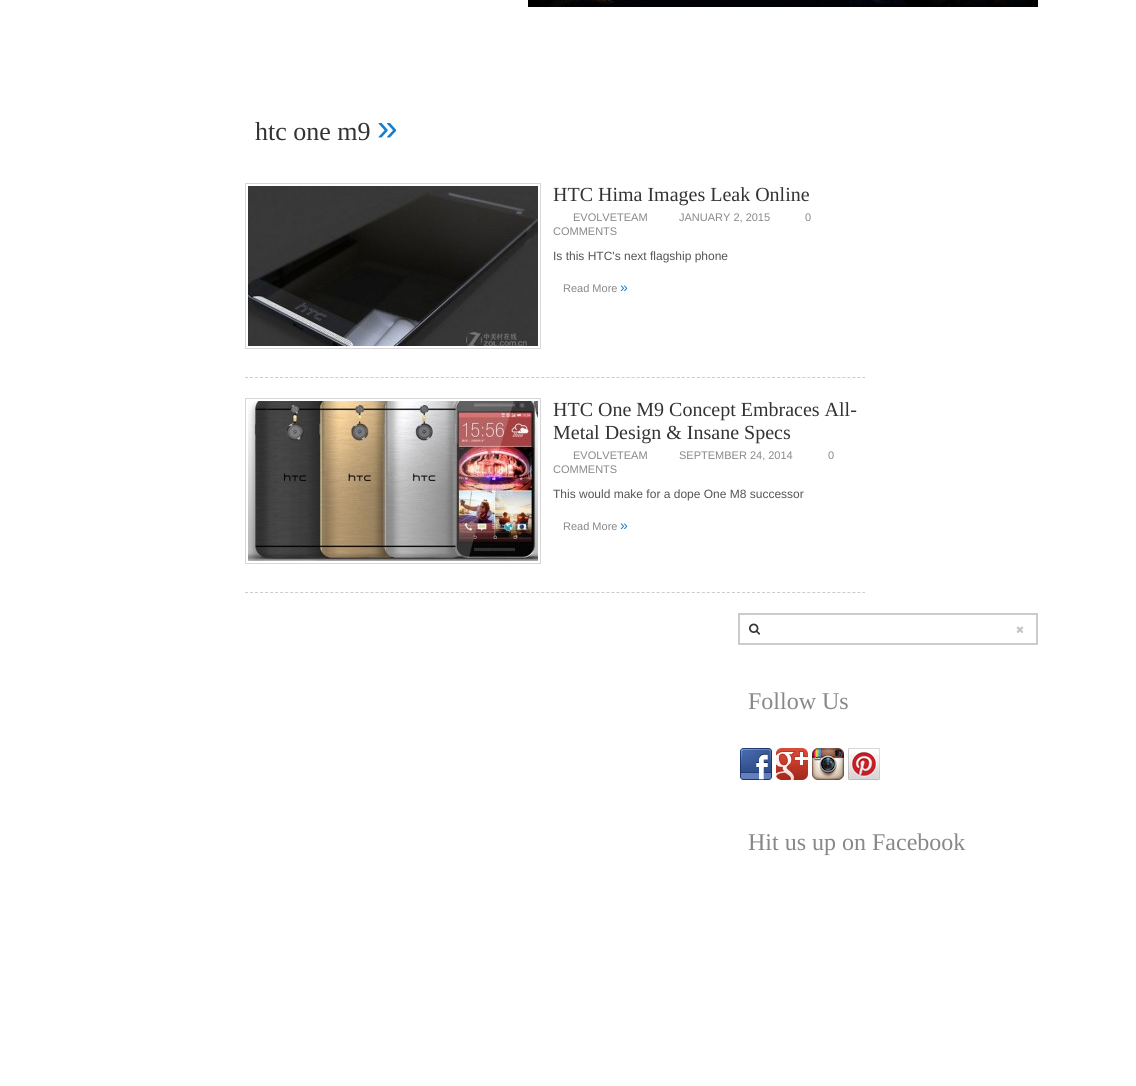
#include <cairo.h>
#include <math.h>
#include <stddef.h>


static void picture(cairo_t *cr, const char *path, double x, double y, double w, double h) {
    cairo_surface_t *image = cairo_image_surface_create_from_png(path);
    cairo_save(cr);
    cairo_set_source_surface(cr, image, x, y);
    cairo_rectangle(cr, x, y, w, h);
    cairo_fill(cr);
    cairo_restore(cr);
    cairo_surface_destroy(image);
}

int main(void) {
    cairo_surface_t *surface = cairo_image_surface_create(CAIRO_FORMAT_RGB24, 1136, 1086);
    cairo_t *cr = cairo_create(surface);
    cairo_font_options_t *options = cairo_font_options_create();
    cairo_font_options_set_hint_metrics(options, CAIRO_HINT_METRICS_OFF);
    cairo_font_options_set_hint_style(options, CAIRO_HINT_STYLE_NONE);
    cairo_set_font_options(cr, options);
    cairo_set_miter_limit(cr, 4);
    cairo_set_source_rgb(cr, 1, 1, 1);
    cairo_paint(cr);
    picture(cr, "img1.png", 528, 0, 510, 7);
    cairo_select_font_face(cr, "Liberation Serif", CAIRO_FONT_SLANT_NORMAL, CAIRO_FONT_WEIGHT_NORMAL);
    cairo_set_font_size(cr, 26);
    cairo_set_source_rgb(cr, 0.2, 0.2, 0.2);
    cairo_move_to(cr, 255, 140);
    cairo_show_text(cr, "htc one m9");
    cairo_select_font_face(cr, "Liberation Sans", CAIRO_FONT_SLANT_NORMAL, CAIRO_FONT_WEIGHT_NORMAL);
    cairo_set_font_size(cr, 37);
    cairo_set_source_rgb(cr, 0.086, 0.494, 0.808);
    cairo_move_to(cr, 377, 140);
    cairo_show_text(cr, "»");
    cairo_new_path(cr);
    cairo_move_to(cr, 245, 377.5);
    cairo_line_to(cr, 865, 377.5);
    cairo_set_source_rgb(cr, 0.8, 0.8, 0.8);
    cairo_set_line_width(cr, 1);
    cairo_set_dash(cr, (double[]){3, 2.02}, 2, 0);
    cairo_stroke(cr);
    cairo_rectangle(cr, 245.5, 183.5, 295, 165);
    cairo_set_source_rgb(cr, 0.843, 0.843, 0.843);
    cairo_set_dash(cr, NULL, 0, 0);
    cairo_stroke(cr);
    picture(cr, "img2.png", 248, 186, 290, 160);
    cairo_select_font_face(cr, "Liberation Serif", CAIRO_FONT_SLANT_NORMAL, CAIRO_FONT_WEIGHT_NORMAL);
    cairo_set_font_size(cr, 20);
    cairo_set_source_rgb(cr, 0.2, 0.2, 0.2);
    cairo_move_to(cr, 553, 201);
    cairo_show_text(cr, "HTC Hima Images Leak Online");
    cairo_select_font_face(cr, "Liberation Sans", CAIRO_FONT_SLANT_NORMAL, CAIRO_FONT_WEIGHT_NORMAL);
    cairo_set_font_size(cr, 11);
    cairo_set_source_rgb(cr, 0.533, 0.533, 0.533);
    cairo_move_to(cr, 573, 221);
    cairo_show_text(cr, "EVOLVETEAM");
    cairo_move_to(cr, 679, 221);
    cairo_show_text(cr, "JANUARY 2, 2015");
    cairo_move_to(cr, 805, 221);
    cairo_show_text(cr, "0");
    cairo_move_to(cr, 553, 235);
    cairo_show_text(cr, "COMMENTS");
    cairo_set_font_size(cr, 12);
    cairo_set_source_rgb(cr, 0.329, 0.329, 0.329);
    cairo_move_to(cr, 553, 260);
    cairo_show_text(cr, "Is this HTC's next flagship phone");
    cairo_set_font_size(cr, 11);
    cairo_set_source_rgb(cr, 0.533, 0.533, 0.533);
    cairo_move_to(cr, 563, 292);
    cairo_show_text(cr, "Read More");
    cairo_set_font_size(cr, 14);
    cairo_set_source_rgb(cr, 0.086, 0.494, 0.808);
    cairo_move_to(cr, 620, 292);
    cairo_show_text(cr, "»");
    cairo_new_path(cr);
    cairo_move_to(cr, 245, 592.5);
    cairo_line_to(cr, 865, 592.5);
    cairo_set_source_rgb(cr, 0.8, 0.8, 0.8);
    cairo_set_dash(cr, (double[]){3, 2.02}, 2, 0);
    cairo_stroke(cr);
    cairo_rectangle(cr, 245.5, 398.5, 295, 165);
    cairo_set_source_rgb(cr, 0.843, 0.843, 0.843);
    cairo_set_dash(cr, NULL, 0, 0);
    cairo_stroke(cr);
    picture(cr, "img3.png", 248, 401, 290, 160);
    cairo_select_font_face(cr, "Liberation Serif", CAIRO_FONT_SLANT_NORMAL, CAIRO_FONT_WEIGHT_NORMAL);
    cairo_set_font_size(cr, 20);
    cairo_set_source_rgb(cr, 0.2, 0.2, 0.2);
    cairo_move_to(cr, 553, 416);
    cairo_show_text(cr, "HTC One M9 Concept Embraces All-");
    cairo_move_to(cr, 553, 439);
    cairo_show_text(cr, "Metal Design & Insane Specs");
    cairo_select_font_face(cr, "Liberation Sans", CAIRO_FONT_SLANT_NORMAL, CAIRO_FONT_WEIGHT_NORMAL);
    cairo_set_font_size(cr, 11);
    cairo_set_source_rgb(cr, 0.533, 0.533, 0.533);
    cairo_move_to(cr, 573, 459);
    cairo_show_text(cr, "EVOLVETEAM");
    cairo_move_to(cr, 679, 459);
    cairo_show_text(cr, "SEPTEMBER 24, 2014");
    cairo_move_to(cr, 828, 459);
    cairo_show_text(cr, "0");
    cairo_move_to(cr, 553, 473);
    cairo_show_text(cr, "COMMENTS");
    cairo_set_font_size(cr, 12);
    cairo_set_source_rgb(cr, 0.329, 0.329, 0.329);
    cairo_move_to(cr, 553, 498);
    cairo_show_text(cr, "This would make for a dope One M8 successor");
    cairo_set_font_size(cr, 11);
    cairo_set_source_rgb(cr, 0.533, 0.533, 0.533);
    cairo_move_to(cr, 563, 530);
    cairo_show_text(cr, "Read More");
    cairo_set_font_size(cr, 14);
    cairo_set_source_rgb(cr, 0.086, 0.494, 0.808);
    cairo_move_to(cr, 620, 530);
    cairo_show_text(cr, "»");
    cairo_rectangle(cr, 739, 614, 298, 30);
    cairo_set_source_rgb(cr, 0.8, 0.8, 0.8);
    cairo_set_line_width(cr, 2);
    cairo_stroke(cr);
    picture(cr, "img4.png", 749, 623, 12, 12);
    picture(cr, "img5.png", 1016, 626, 8, 7);
    cairo_select_font_face(cr, "Liberation Serif", CAIRO_FONT_SLANT_NORMAL, CAIRO_FONT_WEIGHT_NORMAL);
    cairo_set_font_size(cr, 24);
    cairo_set_source_rgb(cr, 0.533, 0.533, 0.533);
    cairo_move_to(cr, 748, 709);
    cairo_show_text(cr, "Follow Us");
    picture(cr, "img6.png", 740, 748, 32, 32);
    picture(cr, "img7.png", 776, 748, 32, 32);
    picture(cr, "img8.png", 812, 748, 32, 32);
    picture(cr, "img9.png", 848, 748, 32, 32);
    cairo_move_to(cr, 748, 850);
    cairo_show_text(cr, "Hit us up on Facebook");
    cairo_surface_write_to_png(surface, "page.png");
    cairo_font_options_destroy(options);
    cairo_destroy(cr);
    cairo_surface_destroy(surface);
    return 0;
}
